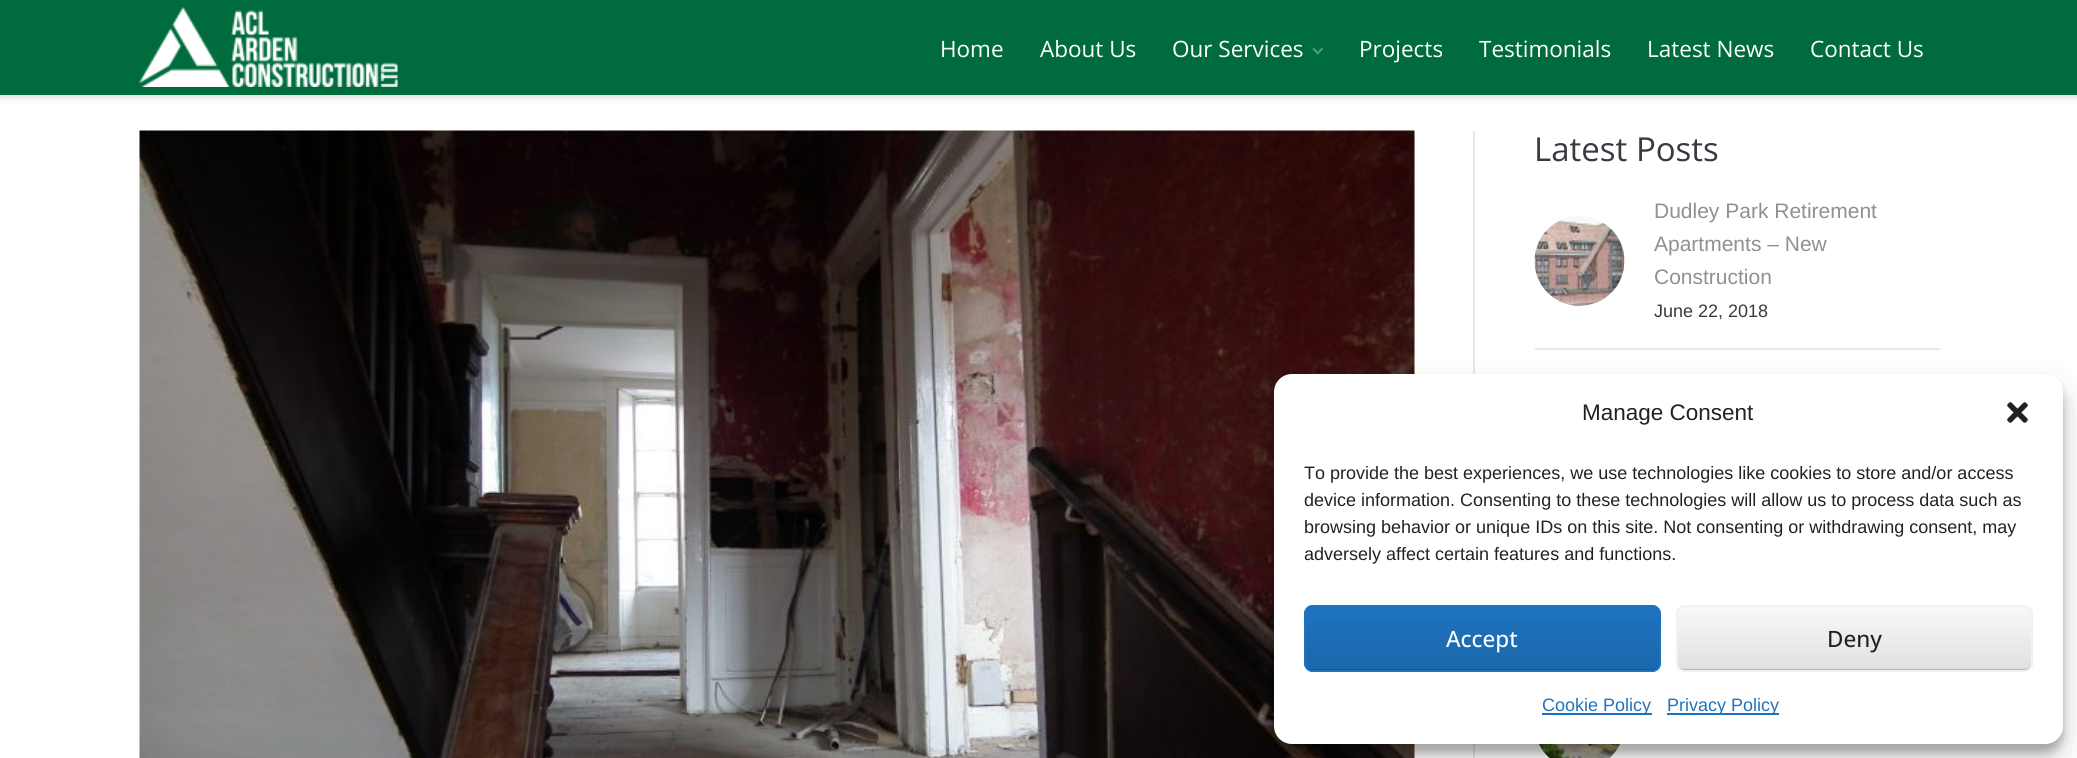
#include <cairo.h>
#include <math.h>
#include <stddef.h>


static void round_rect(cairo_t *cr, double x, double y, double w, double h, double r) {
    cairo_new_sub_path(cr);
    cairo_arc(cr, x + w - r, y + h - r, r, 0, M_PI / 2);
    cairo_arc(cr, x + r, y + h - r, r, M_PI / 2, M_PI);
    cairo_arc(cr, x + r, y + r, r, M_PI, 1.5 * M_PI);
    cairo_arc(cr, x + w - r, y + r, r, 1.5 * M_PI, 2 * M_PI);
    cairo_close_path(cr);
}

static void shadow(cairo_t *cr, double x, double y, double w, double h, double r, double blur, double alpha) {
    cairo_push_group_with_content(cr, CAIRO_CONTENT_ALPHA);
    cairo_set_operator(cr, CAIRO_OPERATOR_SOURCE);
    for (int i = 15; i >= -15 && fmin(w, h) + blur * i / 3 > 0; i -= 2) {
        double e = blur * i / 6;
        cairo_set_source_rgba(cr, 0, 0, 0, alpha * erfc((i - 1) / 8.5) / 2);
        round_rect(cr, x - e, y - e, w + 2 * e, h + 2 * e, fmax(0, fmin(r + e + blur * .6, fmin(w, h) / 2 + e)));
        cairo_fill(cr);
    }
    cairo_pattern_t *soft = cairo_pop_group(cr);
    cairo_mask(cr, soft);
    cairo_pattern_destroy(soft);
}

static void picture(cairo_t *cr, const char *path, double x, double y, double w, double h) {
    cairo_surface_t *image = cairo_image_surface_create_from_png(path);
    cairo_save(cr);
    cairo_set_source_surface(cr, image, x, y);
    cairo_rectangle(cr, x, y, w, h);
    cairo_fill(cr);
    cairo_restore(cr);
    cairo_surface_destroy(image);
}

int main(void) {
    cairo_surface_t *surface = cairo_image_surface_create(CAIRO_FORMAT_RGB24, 2077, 758);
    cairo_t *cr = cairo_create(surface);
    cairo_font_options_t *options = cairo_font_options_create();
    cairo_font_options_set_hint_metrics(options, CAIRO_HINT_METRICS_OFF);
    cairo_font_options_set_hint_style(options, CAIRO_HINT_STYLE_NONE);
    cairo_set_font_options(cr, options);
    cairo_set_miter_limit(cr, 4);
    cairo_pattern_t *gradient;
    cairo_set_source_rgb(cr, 1, 1, 1);
    cairo_paint(cr);
    cairo_set_source_rgb(cr, 0, 0, 0);
    shadow(cr, 0, 0, 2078, 95, 0, 4.5, 0.25);
    cairo_set_source_rgb(cr, 0, 0.424, 0.243);
    cairo_rectangle(cr, 0, 0, 2077, 95);
    cairo_fill(cr);
    picture(cr, "img1.png", 139, 7, 259, 80);
    cairo_select_font_face(cr, "Open Sans", CAIRO_FONT_SLANT_NORMAL, CAIRO_FONT_WEIGHT_NORMAL);
    cairo_set_font_size(cr, 22.5);
    cairo_set_source_rgb(cr, 1, 1, 1);
    cairo_move_to(cr, 940, 57);
    cairo_show_text(cr, "Home");
    cairo_move_to(cr, 1040, 57);
    cairo_show_text(cr, "About Us");
    cairo_move_to(cr, 1172, 57);
    cairo_show_text(cr, "Our Services");
    picture(cr, "img2.png", 1312, 47, 11, 8);
    cairo_move_to(cr, 1359, 57);
    cairo_show_text(cr, "Projects");
    cairo_move_to(cr, 1479, 57);
    cairo_show_text(cr, "Testimonials");
    cairo_move_to(cr, 1647, 57);
    cairo_show_text(cr, "Latest News");
    cairo_move_to(cr, 1810, 57);
    cairo_show_text(cr, "Contact Us");
    picture(cr, "img3.png", 139, 130, 1276, 628);
    cairo_set_source_rgb(cr, 0.898, 0.91, 0.918);
    cairo_rectangle(cr, 1473, 131, 2, 627);
    cairo_fill(cr);
    cairo_set_font_size(cr, 33);
    cairo_set_source_rgb(cr, 0.216, 0.227, 0.255);
    cairo_move_to(cr, 1534, 161);
    cairo_show_text(cr, "Latest Posts");
    picture(cr, "img4.png", 1534, 216, 91, 90);
    cairo_select_font_face(cr, "Liberation Sans", CAIRO_FONT_SLANT_NORMAL, CAIRO_FONT_WEIGHT_NORMAL);
    cairo_set_font_size(cr, 21);
    cairo_set_source_rgb(cr, 0.553, 0.565, 0.584);
    cairo_move_to(cr, 1654, 218);
    cairo_show_text(cr, "Dudley Park Retirement");
    cairo_move_to(cr, 1654, 251);
    cairo_show_text(cr, "Apartments – New");
    cairo_move_to(cr, 1654, 284);
    cairo_show_text(cr, "Construction");
    cairo_set_font_size(cr, 18);
    cairo_set_source_rgb(cr, 0.216, 0.227, 0.255);
    cairo_move_to(cr, 1654, 317);
    cairo_show_text(cr, "June 22, 2018");
    cairo_set_source_rgb(cr, 0.898, 0.91, 0.918);
    cairo_rectangle(cr, 1535, 348, 405, 2);
    cairo_fill(cr);
    picture(cr, "img5.png", 1539, 744, 81, 14);
    cairo_set_source_rgb(cr, 0, 0, 0);
    shadow(cr, 1274, 383, 789, 370, 18, 4.5, 0.23);
    shadow(cr, 1274, 389, 789, 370, 18, 15, 0.19);
    cairo_set_source_rgb(cr, 1, 1, 1);
    round_rect(cr, 1274, 374, 789, 370, 18);
    cairo_fill(cr);
    cairo_set_font_size(cr, 22.5);
    cairo_set_source_rgb(cr, 0.133, 0.133, 0.133);
    cairo_move_to(cr, 1582, 420);
    cairo_show_text(cr, "Manage Consent");
    picture(cr, "img6.png", 2007, 402, 21, 21);
    cairo_set_font_size(cr, 18);
    cairo_move_to(cr, 1304, 479);
    cairo_show_text(cr, "To provide the best experiences, we use technologies like cookies to store and/or access");
    cairo_move_to(cr, 1304, 506);
    cairo_show_text(cr, "device information. Consenting to these technologies will allow us to process data such as");
    cairo_move_to(cr, 1304, 533);
    cairo_show_text(cr, "browsing behavior or unique IDs on this site. Not consenting or withdrawing consent, may");
    cairo_move_to(cr, 1304, 560);
    cairo_show_text(cr, "adversely affect certain features and functions.");
    cairo_set_source_rgb(cr, 0.118, 0.451, 0.745);
    round_rect(cr, 1304, 605, 357, 67, 9);
    cairo_fill(cr);
    cairo_save(cr);
    round_rect(cr, 1304, 605, 357, 67, 9);
    cairo_clip(cr);
    gradient = cairo_pattern_create_linear(1482, 606, 1482, 671);
    cairo_pattern_add_color_stop_rgba(gradient, 0, 0, 0, 0, 0);
    cairo_pattern_add_color_stop_rgba(gradient, 1, 0, 0, 0, 0.1);
    cairo_set_source(cr, gradient);
    cairo_pattern_destroy(gradient);
    cairo_rectangle(cr, 1304, 620, 357, 51);
    cairo_fill(cr);
    cairo_restore(cr);
    cairo_set_source_rgb(cr, 0.086, 0.325, 0.537);
    cairo_new_path(cr);
    cairo_move_to(cr, 1305, 662);
    cairo_line_to(cr, 1305, 663);
    cairo_curve_to(cr, 1305, 667, 1309, 671, 1313, 671);
    cairo_line_to(cr, 1651, 671);
    cairo_curve_to(cr, 1655, 671, 1659, 667, 1659, 663);
    cairo_line_to(cr, 1659, 662);
    cairo_curve_to(cr, 1659, 666, 1656, 669, 1652, 669);
    cairo_line_to(cr, 1312, 669);
    cairo_curve_to(cr, 1308, 669, 1305, 666, 1305, 662);
    cairo_close_path(cr);
    cairo_fill(cr);
    round_rect(cr, 1305, 606, 355, 65, 8);
    cairo_set_source_rgb(cr, 0.118, 0.451, 0.745);
    cairo_stroke(cr);
    cairo_select_font_face(cr, "Open Sans Medium", CAIRO_FONT_SLANT_NORMAL, CAIRO_FONT_WEIGHT_NORMAL);
    cairo_set_font_size(cr, 22.5);
    cairo_set_source_rgb(cr, 1, 1, 1);
    cairo_move_to(cr, 1446, 647);
    cairo_show_text(cr, "Accept");
    cairo_save(cr);
    round_rect(cr, 1676, 605, 357, 67, 9);
    cairo_clip(cr);
    gradient = cairo_pattern_create_linear(1854, 606, 1854, 671);
    cairo_pattern_add_color_stop_rgba(gradient, 0, 0.976, 0.976, 0.976, 1);
    cairo_pattern_add_color_stop_rgba(gradient, 1, 0.878, 0.878, 0.878, 1);
    cairo_set_source(cr, gradient);
    cairo_pattern_destroy(gradient);
    cairo_rectangle(cr, 1676, 606, 357, 65);
    cairo_fill(cr);
    cairo_restore(cr);
    cairo_set_source_rgb(cr, 0.706, 0.706, 0.706);
    cairo_new_path(cr);
    cairo_move_to(cr, 1677, 662);
    cairo_line_to(cr, 1677, 663);
    cairo_curve_to(cr, 1677, 667, 1681, 671, 1685, 671);
    cairo_line_to(cr, 2023, 671);
    cairo_curve_to(cr, 2027, 671, 2031, 667, 2031, 663);
    cairo_line_to(cr, 2031, 662);
    cairo_curve_to(cr, 2031, 666, 2028, 669, 2024, 669);
    cairo_line_to(cr, 1684, 669);
    cairo_curve_to(cr, 1680, 669, 1677, 666, 1677, 662);
    cairo_close_path(cr);
    cairo_fill(cr);
    round_rect(cr, 1677, 606, 355, 65, 8);
    cairo_set_source_rgb(cr, 0.949, 0.949, 0.949);
    cairo_stroke(cr);
    cairo_set_source_rgb(cr, 0.133, 0.133, 0.133);
    cairo_move_to(cr, 1827, 647);
    cairo_show_text(cr, "Deny");
    cairo_set_source_rgb(cr, 0.118, 0.451, 0.745);
    cairo_rectangle(cr, 1542, 713, 110, 2);
    cairo_fill(cr);
    cairo_select_font_face(cr, "Liberation Sans", CAIRO_FONT_SLANT_NORMAL, CAIRO_FONT_WEIGHT_NORMAL);
    cairo_set_font_size(cr, 18);
    cairo_move_to(cr, 1542, 711);
    cairo_show_text(cr, "Cookie Policy");
    cairo_rectangle(cr, 1667, 713, 112, 2);
    cairo_fill(cr);
    cairo_move_to(cr, 1667, 711);
    cairo_show_text(cr, "Privacy Policy");
    cairo_surface_write_to_png(surface, "page.png");
    cairo_font_options_destroy(options);
    cairo_destroy(cr);
    cairo_surface_destroy(surface);
    return 0;
}
